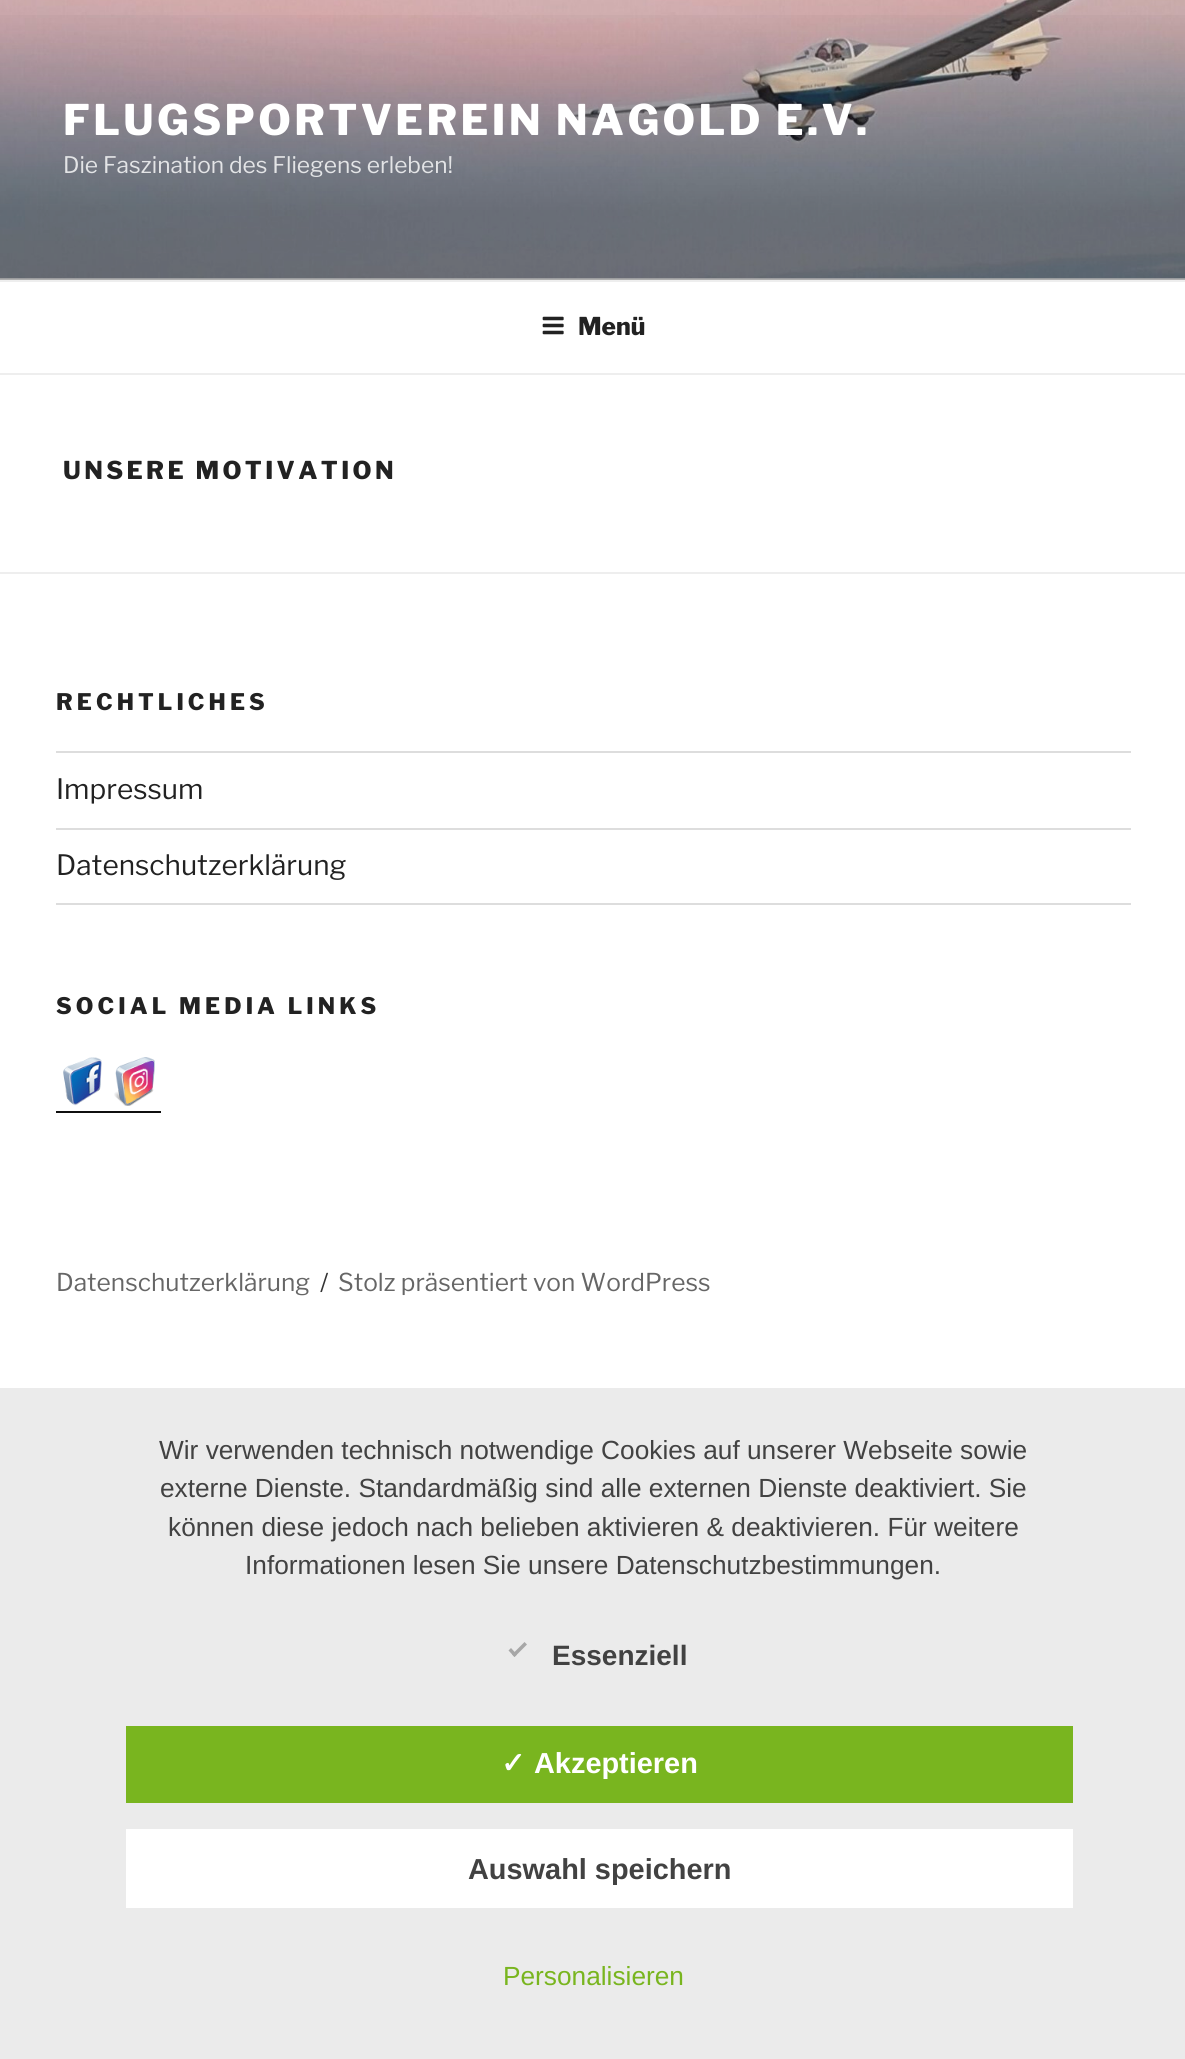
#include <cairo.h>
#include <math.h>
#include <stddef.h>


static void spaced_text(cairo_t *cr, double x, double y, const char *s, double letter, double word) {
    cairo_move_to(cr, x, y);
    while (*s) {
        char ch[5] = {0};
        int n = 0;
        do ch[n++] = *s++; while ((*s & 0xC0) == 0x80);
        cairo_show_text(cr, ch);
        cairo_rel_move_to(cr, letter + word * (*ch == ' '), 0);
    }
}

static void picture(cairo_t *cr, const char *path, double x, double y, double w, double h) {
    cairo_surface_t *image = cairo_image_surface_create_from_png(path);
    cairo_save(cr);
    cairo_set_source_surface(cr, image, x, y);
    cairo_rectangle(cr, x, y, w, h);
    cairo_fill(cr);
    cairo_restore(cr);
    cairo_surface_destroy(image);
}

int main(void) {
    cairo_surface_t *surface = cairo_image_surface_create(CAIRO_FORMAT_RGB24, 1185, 2059);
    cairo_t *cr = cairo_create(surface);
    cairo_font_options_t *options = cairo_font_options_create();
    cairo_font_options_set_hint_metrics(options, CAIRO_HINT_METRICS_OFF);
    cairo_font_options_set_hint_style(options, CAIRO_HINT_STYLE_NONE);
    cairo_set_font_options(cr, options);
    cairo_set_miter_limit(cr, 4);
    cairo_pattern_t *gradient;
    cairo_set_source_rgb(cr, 1, 1, 1);
    cairo_paint(cr);
    cairo_set_source_rgb(cr, 0.98, 0.98, 0.98);
    cairo_rectangle(cr, 0, 278, 1185, 2);
    cairo_fill(cr);
    picture(cr, "img1.png", 0, 0, 1185, 279);
    gradient = cairo_pattern_create_linear(593, 0, 593, 280);
    cairo_pattern_add_color_stop_rgba(gradient, 0, 0, 0, 0, 0);
    cairo_pattern_add_color_stop_rgba(gradient, 0.75, 0, 0, 0, 0.3);
    cairo_pattern_add_color_stop_rgba(gradient, 1, 0, 0, 0, 0.3);
    cairo_set_source(cr, gradient);
    cairo_pattern_destroy(gradient);
    cairo_rectangle(cr, 0, 15, 1185, 265);
    cairo_fill(cr);
    cairo_select_font_face(cr, "Libre Franklin Thin", CAIRO_FONT_SLANT_NORMAL, CAIRO_FONT_WEIGHT_NORMAL);
    cairo_set_font_size(cr, 42);
    cairo_set_source_rgb(cr, 1, 1, 1);
    spaced_text(cr, 63, 135, "FLUGSPORTVEREIN NAGOLD E.V.", 3.35, 0);
    cairo_select_font_face(cr, "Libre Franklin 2 Thin", CAIRO_FONT_SLANT_NORMAL, CAIRO_FONT_WEIGHT_NORMAL);
    cairo_set_font_size(cr, 22.75);
    cairo_set_source_rgb(cr, 0.89, 0.894, 0.902);
    cairo_move_to(cr, 63, 173);
    cairo_show_text(cr, "Die Faszination des Fliegens erleben!");
    cairo_set_source_rgb(cr, 0.933, 0.933, 0.933);
    cairo_rectangle(cr, 0, 280, 1185, 2);
    cairo_fill(cr);
    cairo_rectangle(cr, 0, 373, 1185, 2);
    cairo_fill(cr);
    picture(cr, "img2.png", 542, 316, 22, 19);
    cairo_select_font_face(cr, "Libre Franklin Thin", CAIRO_FONT_SLANT_NORMAL, CAIRO_FONT_WEIGHT_NORMAL);
    cairo_set_font_size(cr, 24.5);
    cairo_set_source_rgb(cr, 0.133, 0.133, 0.133);
    cairo_move_to(cr, 578, 335);
    cairo_show_text(cr, "Menü");
    spaced_text(cr, 63, 479, "UNSERE MOTIVATION", 3.4, 0);
    cairo_set_source_rgb(cr, 0.933, 0.933, 0.933);
    cairo_rectangle(cr, 0, 572, 1185, 2);
    cairo_fill(cr);
    cairo_set_font_size(cr, 22.75);
    cairo_set_source_rgb(cr, 0.133, 0.133, 0.133);
    spaced_text(cr, 56, 710, "RECHTLICHES", 4.1, 0);
    cairo_set_source_rgb(cr, 0.867, 0.867, 0.867);
    cairo_rectangle(cr, 56, 751, 1075, 2);
    cairo_fill(cr);
    cairo_rectangle(cr, 56, 828, 1075, 2);
    cairo_fill(cr);
    cairo_select_font_face(cr, "Libre Franklin 2 Thin", CAIRO_FONT_SLANT_NORMAL, CAIRO_FONT_WEIGHT_NORMAL);
    cairo_set_font_size(cr, 28);
    cairo_set_source_rgb(cr, 0.133, 0.133, 0.133);
    cairo_move_to(cr, 56, 799);
    cairo_show_text(cr, "Impressum");
    cairo_set_source_rgb(cr, 0.867, 0.867, 0.867);
    cairo_rectangle(cr, 56, 903, 1075, 2);
    cairo_fill(cr);
    cairo_set_source_rgb(cr, 0.133, 0.133, 0.133);
    cairo_move_to(cr, 56, 875);
    cairo_show_text(cr, "Datenschutzerklärung");
    cairo_select_font_face(cr, "Libre Franklin Thin", CAIRO_FONT_SLANT_NORMAL, CAIRO_FONT_WEIGHT_NORMAL);
    cairo_set_font_size(cr, 22.75);
    spaced_text(cr, 56, 1014, "SOCIAL MEDIA LINKS", 4.1, 0);
    picture(cr, "img3.png", 63, 1057, 39, 49);
    picture(cr, "img4.png", 114, 1057, 41, 49);
    cairo_set_source_rgb(cr, 0.059, 0.059, 0.059);
    cairo_rectangle(cr, 56, 1111, 105, 2);
    cairo_fill(cr);
    cairo_select_font_face(cr, "Libre Franklin 2 Thin", CAIRO_FONT_SLANT_NORMAL, CAIRO_FONT_WEIGHT_NORMAL);
    cairo_set_font_size(cr, 24.5);
    cairo_set_source_rgb(cr, 0.4, 0.4, 0.4);
    cairo_move_to(cr, 56, 1291);
    cairo_show_text(cr, "Datenschutzerklärung");
    cairo_set_source_rgb(cr, 0.2, 0.2, 0.2);
    cairo_move_to(cr, 320, 1291);
    cairo_show_text(cr, "/");
    cairo_set_source_rgb(cr, 0.4, 0.4, 0.4);
    cairo_move_to(cr, 338, 1291);
    cairo_show_text(cr, "Stolz präsentiert von WordPress");
    cairo_set_source_rgb(cr, 0.918, 0.918, 0.918);
    cairo_rectangle(cr, 0, 1388, 1185, 671);
    cairo_fill(cr);
    cairo_select_font_face(cr, "Liberation Sans", CAIRO_FONT_SLANT_NORMAL, CAIRO_FONT_WEIGHT_NORMAL);
    cairo_set_font_size(cr, 26.25);
    cairo_set_source_rgb(cr, 0.259, 0.259, 0.259);
    cairo_move_to(cr, 159, 1459);
    cairo_show_text(cr, "Wir verwenden technisch notwendige Cookies auf unserer Webseite sowie");
    cairo_move_to(cr, 160, 1497);
    cairo_show_text(cr, "externe Dienste. Standardmäßig sind alle externen Dienste deaktiviert. Sie");
    cairo_move_to(cr, 168, 1536);
    cairo_show_text(cr, "können diese jedoch nach belieben aktivieren & deaktivieren. Für weitere");
    cairo_move_to(cr, 245, 1574);
    cairo_show_text(cr, "Informationen lesen Sie unsere Datenschutzbestimmungen.");
    cairo_set_source_rgb(cr, 0.655, 0.655, 0.655);
    cairo_new_path(cr);
    cairo_move_to(cr, 524.5, 1642);
    cairo_line_to(cr, 527, 1644.5);
    cairo_line_to(cr, 514.5, 1657);
    cairo_line_to(cr, 512, 1654.5);
    cairo_close_path(cr);
    cairo_fill(cr);
    cairo_new_path(cr);
    cairo_move_to(cr, 511, 1648);
    cairo_line_to(cr, 517, 1654.5);
    cairo_line_to(cr, 514.5, 1657);
    cairo_line_to(cr, 508.5, 1650.5);
    cairo_close_path(cr);
    cairo_fill(cr);
    cairo_select_font_face(cr, "Liberation Sans", CAIRO_FONT_SLANT_NORMAL, CAIRO_FONT_WEIGHT_BOLD);
    cairo_set_font_size(cr, 28);
    cairo_set_source_rgb(cr, 0.259, 0.259, 0.259);
    cairo_move_to(cr, 552, 1665);
    cairo_show_text(cr, "Essenziell");
    cairo_set_source_rgb(cr, 0.475, 0.71, 0.122);
    cairo_rectangle(cr, 126, 1726, 947, 77);
    cairo_fill(cr);
    cairo_select_font_face(cr, "DejaVu Sans", CAIRO_FONT_SLANT_NORMAL, CAIRO_FONT_WEIGHT_BOLD);
    cairo_set_font_size(cr, 28.9);
    cairo_set_source_rgb(cr, 1, 1, 1);
    cairo_move_to(cr, 501, 1773);
    cairo_show_text(cr, "✓");
    cairo_select_font_face(cr, "Liberation Sans", CAIRO_FONT_SLANT_NORMAL, CAIRO_FONT_WEIGHT_BOLD);
    cairo_move_to(cr, 534, 1773);
    cairo_show_text(cr, "Akzeptieren");
    cairo_rectangle(cr, 126, 1829, 947, 79);
    cairo_fill(cr);
    cairo_set_source_rgb(cr, 0.259, 0.259, 0.259);
    cairo_move_to(cr, 468, 1879);
    cairo_show_text(cr, "Auswahl speichern");
    cairo_select_font_face(cr, "Liberation Sans", CAIRO_FONT_SLANT_NORMAL, CAIRO_FONT_WEIGHT_NORMAL);
    cairo_set_font_size(cr, 26.25);
    cairo_set_source_rgb(cr, 0.475, 0.71, 0.122);
    cairo_move_to(cr, 503, 1985);
    cairo_show_text(cr, "Personalisieren");
    cairo_surface_write_to_png(surface, "page.png");
    cairo_font_options_destroy(options);
    cairo_destroy(cr);
    cairo_surface_destroy(surface);
    return 0;
}
